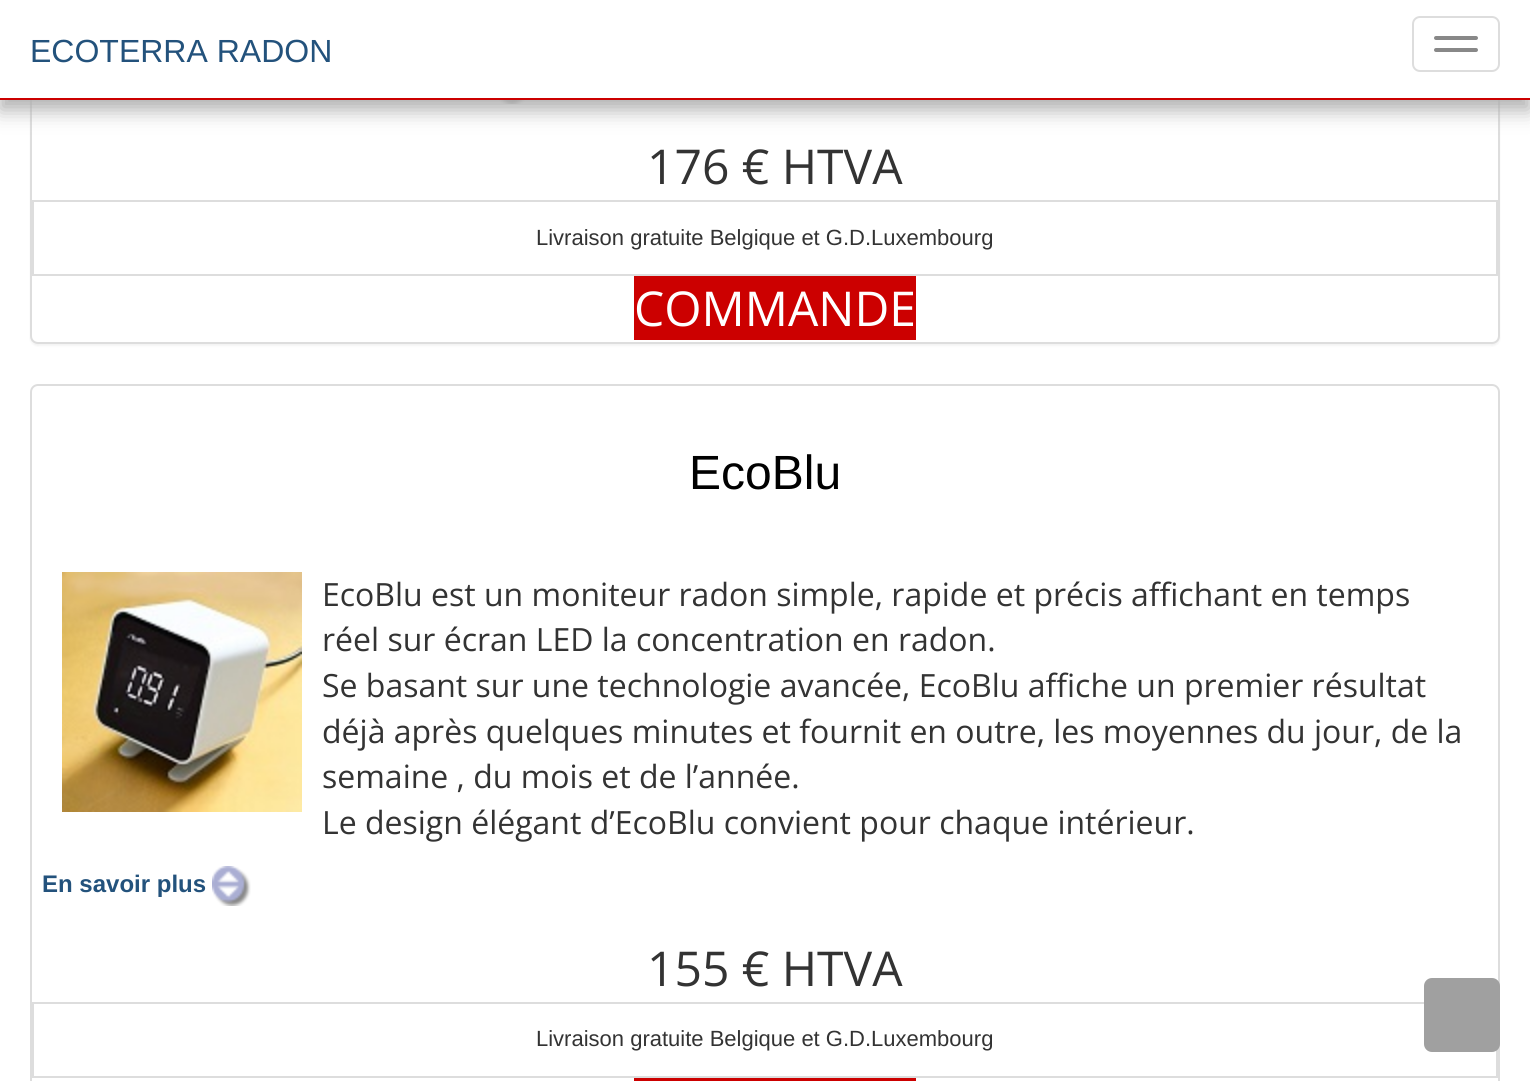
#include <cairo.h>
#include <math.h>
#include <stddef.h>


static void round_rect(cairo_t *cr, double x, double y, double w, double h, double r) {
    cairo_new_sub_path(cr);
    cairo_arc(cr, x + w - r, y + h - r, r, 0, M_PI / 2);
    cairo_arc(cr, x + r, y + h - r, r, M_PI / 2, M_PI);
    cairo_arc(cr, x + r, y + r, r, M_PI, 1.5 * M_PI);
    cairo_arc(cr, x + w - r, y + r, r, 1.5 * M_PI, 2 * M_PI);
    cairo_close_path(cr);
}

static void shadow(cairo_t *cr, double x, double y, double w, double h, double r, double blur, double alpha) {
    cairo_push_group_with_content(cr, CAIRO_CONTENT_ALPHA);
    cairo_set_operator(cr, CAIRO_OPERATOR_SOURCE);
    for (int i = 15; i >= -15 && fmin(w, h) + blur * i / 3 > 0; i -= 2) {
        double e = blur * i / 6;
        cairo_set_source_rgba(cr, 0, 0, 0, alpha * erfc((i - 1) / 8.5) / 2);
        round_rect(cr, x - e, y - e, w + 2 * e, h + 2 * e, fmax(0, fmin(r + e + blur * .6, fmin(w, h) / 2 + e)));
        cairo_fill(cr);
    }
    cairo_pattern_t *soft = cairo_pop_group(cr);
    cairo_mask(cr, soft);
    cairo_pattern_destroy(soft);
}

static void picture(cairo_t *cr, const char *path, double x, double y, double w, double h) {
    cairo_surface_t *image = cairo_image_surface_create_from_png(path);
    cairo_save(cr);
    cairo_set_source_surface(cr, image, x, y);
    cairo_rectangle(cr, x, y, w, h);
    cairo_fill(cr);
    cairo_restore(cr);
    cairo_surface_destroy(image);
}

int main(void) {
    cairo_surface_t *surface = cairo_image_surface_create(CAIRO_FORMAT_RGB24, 1530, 1081);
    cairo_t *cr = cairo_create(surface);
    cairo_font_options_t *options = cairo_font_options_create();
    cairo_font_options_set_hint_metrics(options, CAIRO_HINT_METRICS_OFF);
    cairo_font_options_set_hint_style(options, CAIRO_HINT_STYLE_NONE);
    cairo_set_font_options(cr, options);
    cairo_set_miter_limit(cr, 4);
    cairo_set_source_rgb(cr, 1, 1, 1);
    cairo_paint(cr);
    cairo_set_source_rgb(cr, 0, 0, 0);
    shadow(cr, 30, -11, 1470, 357, 8, 1, 0.05);
    cairo_set_source_rgb(cr, 1, 1, 1);
    round_rect(cr, 31, -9, 1468, 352, 7);
    cairo_fill_preserve(cr);
    cairo_set_source_rgb(cr, 0.867, 0.867, 0.867);
    cairo_stroke(cr);
    picture(cr, "img1.png", 499, 100, 26, 4);
    cairo_set_source_rgb(cr, 0.686, 0.686, 0.686);
    shadow(cr, 0, 10, 1530, 100, 0, 10, 1);
    cairo_set_source_rgb(cr, 1, 1, 1);
    cairo_rectangle(cr, 0, 0, 1530, 98);
    cairo_fill(cr);
    cairo_set_source_rgb(cr, 0.8, 0, 0);
    cairo_rectangle(cr, 0, 98, 1530, 2);
    cairo_fill(cr);
    cairo_select_font_face(cr, "Liberation Sans", CAIRO_FONT_SLANT_NORMAL, CAIRO_FONT_WEIGHT_NORMAL);
    cairo_set_font_size(cr, 32);
    cairo_set_source_rgb(cr, 0.137, 0.322, 0.486);
    cairo_move_to(cr, 30, 62);
    cairo_show_text(cr, "ECOTERRA RADON");
    round_rect(cr, 1413, 17, 86, 54, 7);
    cairo_set_source_rgb(cr, 0.867, 0.867, 0.867);
    cairo_stroke(cr);
    cairo_set_source_rgb(cr, 0.533, 0.533, 0.533);
    round_rect(cr, 1434, 36, 44, 4, 2);
    cairo_fill(cr);
    round_rect(cr, 1434, 48, 44, 4, 2);
    cairo_fill(cr);
    cairo_select_font_face(cr, "Open Sans", CAIRO_FONT_SLANT_NORMAL, CAIRO_FONT_WEIGHT_NORMAL);
    cairo_set_font_size(cr, 48);
    cairo_set_source_rgb(cr, 0.2, 0.2, 0.2);
    cairo_move_to(cr, 647, 184);
    cairo_show_text(cr, "176 € HTVA");
    cairo_rectangle(cr, 33, 201, 1464, 74);
    cairo_set_source_rgb(cr, 0.867, 0.867, 0.867);
    cairo_stroke(cr);
    cairo_select_font_face(cr, "Liberation Sans", CAIRO_FONT_SLANT_NORMAL, CAIRO_FONT_WEIGHT_NORMAL);
    cairo_set_font_size(cr, 22);
    cairo_set_source_rgb(cr, 0.2, 0.2, 0.2);
    cairo_move_to(cr, 536, 245);
    cairo_show_text(cr, "Livraison gratuite Belgique et G.D.Luxembourg");
    cairo_set_source_rgb(cr, 0.8, 0, 0);
    cairo_rectangle(cr, 634, 276, 282, 64);
    cairo_fill(cr);
    cairo_select_font_face(cr, "Open Sans", CAIRO_FONT_SLANT_NORMAL, CAIRO_FONT_WEIGHT_NORMAL);
    cairo_set_font_size(cr, 48);
    cairo_set_source_rgb(cr, 1, 1, 1);
    cairo_move_to(cr, 634, 326);
    cairo_show_text(cr, "COMMANDE");
    round_rect(cr, 31, 385, 1468, 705, 7);
    cairo_set_source_rgb(cr, 0.867, 0.867, 0.867);
    cairo_stroke(cr);
    cairo_select_font_face(cr, "Liberation Sans", CAIRO_FONT_SLANT_NORMAL, CAIRO_FONT_WEIGHT_NORMAL);
    cairo_set_source_rgb(cr, 0, 0, 0);
    cairo_move_to(cr, 689, 489);
    cairo_show_text(cr, "EcoBlu");
    picture(cr, "img2.png", 62, 572, 240, 240);
    cairo_select_font_face(cr, "Open Sans", CAIRO_FONT_SLANT_NORMAL, CAIRO_FONT_WEIGHT_NORMAL);
    cairo_set_font_size(cr, 32);
    cairo_set_source_rgb(cr, 0.2, 0.2, 0.2);
    cairo_move_to(cr, 322, 606);
    cairo_show_text(cr, "EcoBlu est un moniteur radon simple, rapide et précis affichant en temps");
    cairo_move_to(cr, 322, 651);
    cairo_show_text(cr, "réel sur écran LED la concentration en radon.");
    cairo_move_to(cr, 322, 697);
    cairo_show_text(cr, "Se basant sur une technologie avancée, EcoBlu affiche un premier résultat");
    cairo_move_to(cr, 322, 743);
    cairo_show_text(cr, "déjà après quelques minutes et fournit en outre, les moyennes du jour, de la");
    cairo_move_to(cr, 322, 788);
    cairo_show_text(cr, "semaine , du mois et de l’année.");
    cairo_move_to(cr, 322, 834);
    cairo_show_text(cr, "Le design élégant d’EcoBlu convient pour chaque intérieur.");
    cairo_select_font_face(cr, "Liberation Sans", CAIRO_FONT_SLANT_NORMAL, CAIRO_FONT_WEIGHT_BOLD);
    cairo_set_font_size(cr, 24);
    cairo_set_source_rgb(cr, 0.137, 0.322, 0.486);
    cairo_move_to(cr, 42, 892);
    cairo_show_text(cr, "En savoir plus");
    picture(cr, "img3.png", 212, 866, 39, 40);
    cairo_select_font_face(cr, "Open Sans", CAIRO_FONT_SLANT_NORMAL, CAIRO_FONT_WEIGHT_NORMAL);
    cairo_set_font_size(cr, 48);
    cairo_set_source_rgb(cr, 0.2, 0.2, 0.2);
    cairo_move_to(cr, 647, 986);
    cairo_show_text(cr, "155 € HTVA");
    cairo_rectangle(cr, 33, 1003, 1464, 74);
    cairo_set_source_rgb(cr, 0.867, 0.867, 0.867);
    cairo_stroke(cr);
    cairo_select_font_face(cr, "Liberation Sans", CAIRO_FONT_SLANT_NORMAL, CAIRO_FONT_WEIGHT_NORMAL);
    cairo_set_font_size(cr, 22);
    cairo_set_source_rgb(cr, 0.2, 0.2, 0.2);
    cairo_move_to(cr, 536, 1046);
    cairo_show_text(cr, "Livraison gratuite Belgique et G.D.Luxembourg");
    cairo_set_source_rgb(cr, 0.8, 0, 0);
    cairo_rectangle(cr, 634, 1078, 282, 3);
    cairo_fill(cr);
    cairo_set_source_rgb(cr, 0.627, 0.627, 0.627);
    round_rect(cr, 1425, 979, 74, 72, 7);
    cairo_fill_preserve(cr);
    cairo_stroke(cr);
    cairo_surface_write_to_png(surface, "page.png");
    cairo_font_options_destroy(options);
    cairo_destroy(cr);
    cairo_surface_destroy(surface);
    return 0;
}
